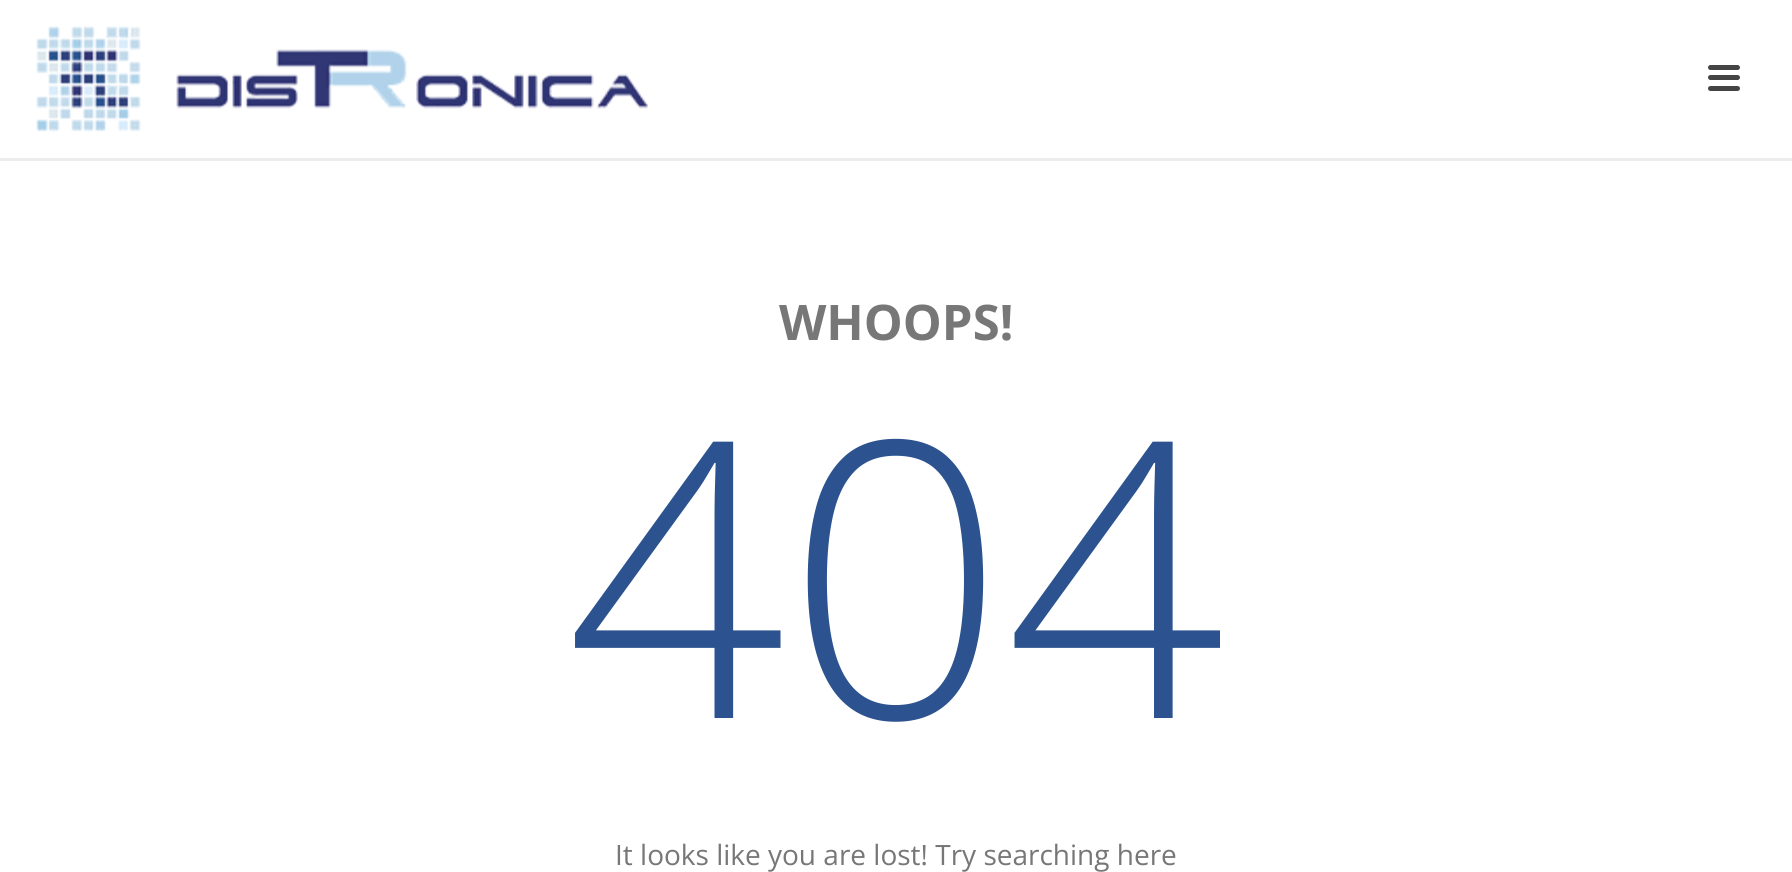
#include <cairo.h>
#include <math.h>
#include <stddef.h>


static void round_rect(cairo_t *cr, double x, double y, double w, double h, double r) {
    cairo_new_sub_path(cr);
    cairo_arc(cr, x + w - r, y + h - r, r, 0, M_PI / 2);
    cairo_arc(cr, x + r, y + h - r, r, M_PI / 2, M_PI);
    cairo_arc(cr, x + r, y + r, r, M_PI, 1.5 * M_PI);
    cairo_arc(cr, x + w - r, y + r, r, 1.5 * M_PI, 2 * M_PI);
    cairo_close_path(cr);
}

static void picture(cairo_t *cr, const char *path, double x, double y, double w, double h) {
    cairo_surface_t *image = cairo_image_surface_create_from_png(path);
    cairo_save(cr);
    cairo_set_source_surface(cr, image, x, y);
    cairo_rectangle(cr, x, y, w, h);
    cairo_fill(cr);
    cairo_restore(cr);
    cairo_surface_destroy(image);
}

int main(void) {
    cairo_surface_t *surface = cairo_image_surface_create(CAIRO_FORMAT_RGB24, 1792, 872);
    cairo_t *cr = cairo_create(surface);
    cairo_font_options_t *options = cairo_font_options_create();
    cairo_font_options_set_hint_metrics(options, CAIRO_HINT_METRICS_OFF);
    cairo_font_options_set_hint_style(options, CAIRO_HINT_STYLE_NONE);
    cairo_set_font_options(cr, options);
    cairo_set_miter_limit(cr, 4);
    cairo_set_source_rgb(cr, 1, 1, 1);
    cairo_paint(cr);
    cairo_set_source_rgb(cr, 0.929, 0.929, 0.929);
    cairo_rectangle(cr, 0, 158, 1792, 3);
    cairo_fill(cr);
    picture(cr, "img1.png", 36, 26, 612, 106);
    cairo_set_source_rgb(cr, 0.267, 0.267, 0.267);
    round_rect(cr, 1708, 65, 32, 5, 2.5);
    cairo_fill(cr);
    round_rect(cr, 1708, 75, 32, 5, 2.5);
    cairo_fill(cr);
    round_rect(cr, 1708, 86, 32, 5, 2.5);
    cairo_fill(cr);
    cairo_select_font_face(cr, "Open Sans", CAIRO_FONT_SLANT_NORMAL, CAIRO_FONT_WEIGHT_BOLD);
    cairo_set_font_size(cr, 49);
    cairo_set_source_rgb(cr, 0.467, 0.467, 0.467);
    cairo_move_to(cr, 779, 340);
    cairo_show_text(cr, "WHOOPS!");
    cairo_select_font_face(cr, "Open Sans Light", CAIRO_FONT_SLANT_NORMAL, CAIRO_FONT_WEIGHT_NORMAL);
    cairo_set_font_size(cr, 385);
    cairo_set_source_rgb(cr, 0.173, 0.325, 0.561);
    cairo_move_to(cr, 566, 718);
    cairo_show_text(cr, "404");
    cairo_select_font_face(cr, "Open Sans", CAIRO_FONT_SLANT_NORMAL, CAIRO_FONT_WEIGHT_NORMAL);
    cairo_set_font_size(cr, 28);
    cairo_set_source_rgb(cr, 0.467, 0.467, 0.467);
    cairo_move_to(cr, 615, 865);
    cairo_show_text(cr, "It looks like you are lost! Try searching here");
    cairo_surface_write_to_png(surface, "page.png");
    cairo_font_options_destroy(options);
    cairo_destroy(cr);
    cairo_surface_destroy(surface);
    return 0;
}
